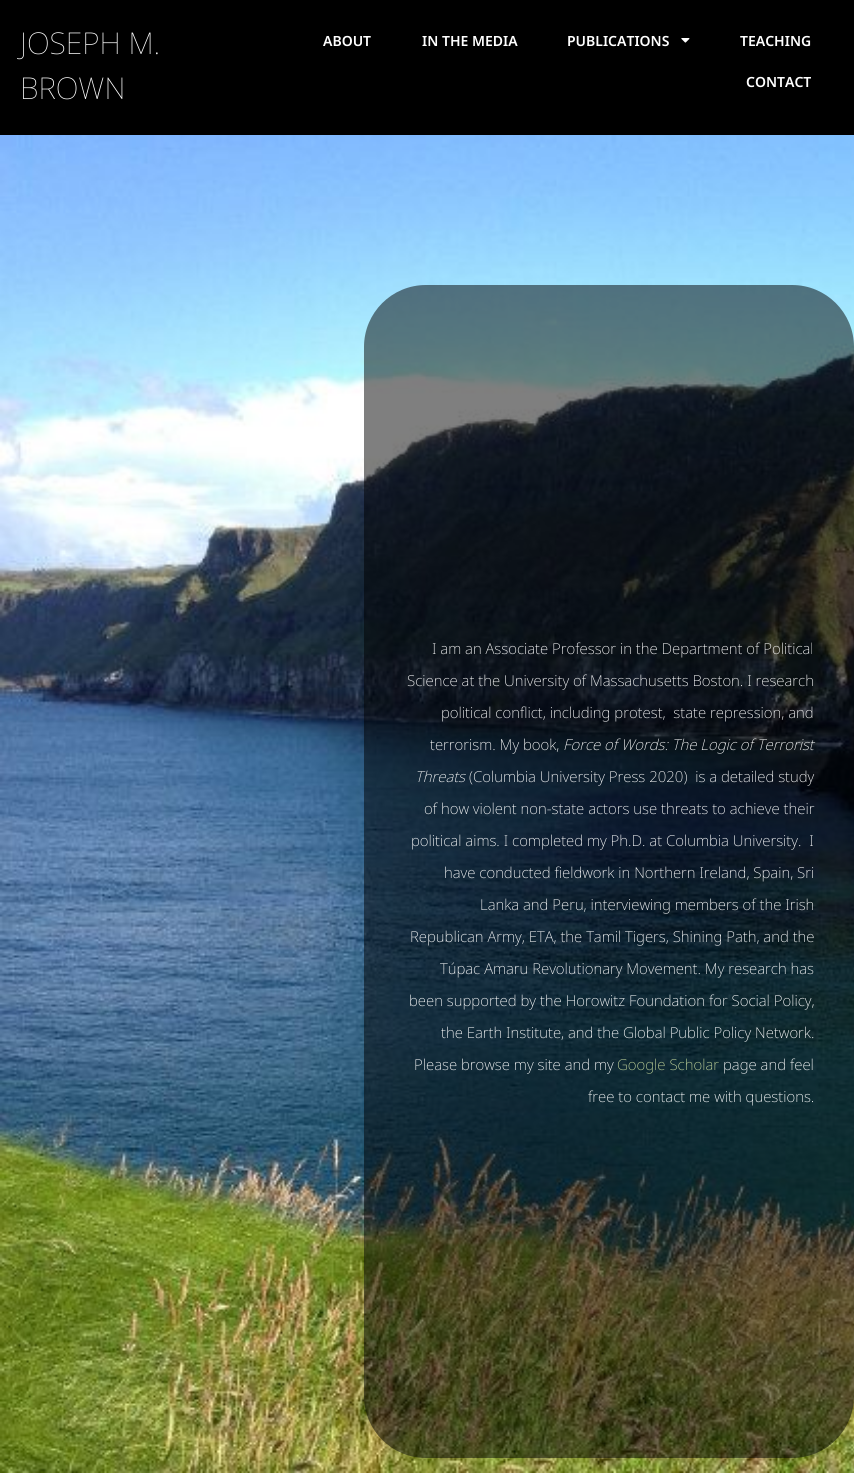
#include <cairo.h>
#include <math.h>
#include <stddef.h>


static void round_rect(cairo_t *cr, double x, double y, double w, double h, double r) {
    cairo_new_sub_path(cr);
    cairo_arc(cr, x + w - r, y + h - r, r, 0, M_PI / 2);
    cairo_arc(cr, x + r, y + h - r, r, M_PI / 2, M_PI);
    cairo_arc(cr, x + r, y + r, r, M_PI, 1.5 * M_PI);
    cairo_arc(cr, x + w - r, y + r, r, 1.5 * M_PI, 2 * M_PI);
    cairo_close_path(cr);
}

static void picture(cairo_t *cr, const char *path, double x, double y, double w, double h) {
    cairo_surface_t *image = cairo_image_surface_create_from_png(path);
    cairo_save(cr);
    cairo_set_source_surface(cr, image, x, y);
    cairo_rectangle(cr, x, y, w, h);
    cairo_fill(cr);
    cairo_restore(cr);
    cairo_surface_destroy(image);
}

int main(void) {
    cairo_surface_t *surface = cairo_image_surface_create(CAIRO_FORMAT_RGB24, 854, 1473);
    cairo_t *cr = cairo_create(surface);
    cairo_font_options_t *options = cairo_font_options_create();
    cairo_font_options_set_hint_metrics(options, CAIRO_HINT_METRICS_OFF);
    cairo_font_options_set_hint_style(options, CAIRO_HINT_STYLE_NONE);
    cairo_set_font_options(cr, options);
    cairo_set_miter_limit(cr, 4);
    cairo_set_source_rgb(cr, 0, 0, 0);
    cairo_paint(cr);
    cairo_select_font_face(cr, "Noto Sans Thin", CAIRO_FONT_SLANT_NORMAL, CAIRO_FONT_WEIGHT_NORMAL);
    cairo_set_font_size(cr, 30);
    cairo_set_source_rgb(cr, 1, 1, 1);
    cairo_move_to(cr, 20, 54);
    cairo_show_text(cr, "JOSEPH M.");
    cairo_move_to(cr, 20, 99);
    cairo_show_text(cr, "BROWN");
    cairo_select_font_face(cr, "Noto Sans SemiBold", CAIRO_FONT_SLANT_NORMAL, CAIRO_FONT_WEIGHT_NORMAL);
    cairo_set_font_size(cr, 14);
    cairo_move_to(cr, 323, 46);
    cairo_show_text(cr, "ABOUT");
    cairo_move_to(cr, 422, 46);
    cairo_show_text(cr, "IN THE MEDIA");
    cairo_move_to(cr, 567, 46);
    cairo_show_text(cr, "PUBLICATIONS");
    picture(cr, "img1.png", 681, 38, 9, 5);
    cairo_move_to(cr, 740, 46);
    cairo_show_text(cr, "TEACHING");
    cairo_move_to(cr, 746, 87);
    cairo_show_text(cr, "CONTACT");
    picture(cr, "img2.png", 0, 135, 854, 1338);
    cairo_set_source_rgba(cr, 0, 0, 0, 0.5);
    round_rect(cr, 364, 285, 490, 1173, 62);
    cairo_fill(cr);
    cairo_select_font_face(cr, "Noto Sans ExtraLight", CAIRO_FONT_SLANT_NORMAL, CAIRO_FONT_WEIGHT_NORMAL);
    cairo_set_font_size(cr, 15);
    cairo_set_source_rgb(cr, 1, 1, 1);
    cairo_move_to(cr, 432, 654);
    cairo_show_text(cr, "I am an Associate Professor in the Department of Political");
    cairo_move_to(cr, 407, 686);
    cairo_show_text(cr, "Science at the University of Massachusetts Boston. I research");
    cairo_move_to(cr, 441, 718);
    cairo_show_text(cr, "political conflict, including protest,  state repression, and");
    cairo_move_to(cr, 430, 750);
    cairo_show_text(cr, "terrorism. My book,");
    cairo_select_font_face(cr, "Noto Sans ExtraLight", CAIRO_FONT_SLANT_ITALIC, CAIRO_FONT_WEIGHT_NORMAL);
    cairo_move_to(cr, 563, 750);
    cairo_show_text(cr, "Force of Words: The Logic of Terrorist");
    cairo_move_to(cr, 415, 782);
    cairo_show_text(cr, "Threats");
    cairo_select_font_face(cr, "Noto Sans ExtraLight", CAIRO_FONT_SLANT_NORMAL, CAIRO_FONT_WEIGHT_NORMAL);
    cairo_move_to(cr, 469, 782);
    cairo_show_text(cr, "(Columbia University Press 2020)  is a detailed study");
    cairo_move_to(cr, 424, 814);
    cairo_show_text(cr, "of how violent non-state actors use threats to achieve their");
    cairo_move_to(cr, 411, 846);
    cairo_show_text(cr, "political aims. I completed my Ph.D. at Columbia University.  I");
    cairo_move_to(cr, 444, 878);
    cairo_show_text(cr, "have conducted fieldwork in Northern Ireland, Spain, Sri");
    cairo_move_to(cr, 480, 910);
    cairo_show_text(cr, "Lanka and Peru, interviewing members of the Irish");
    cairo_move_to(cr, 410, 942);
    cairo_show_text(cr, "Republican Army, ETA, the Tamil Tigers, Shining Path, and the");
    cairo_move_to(cr, 440, 974);
    cairo_show_text(cr, "Túpac Amaru Revolutionary Movement. My research has");
    cairo_move_to(cr, 409, 1006);
    cairo_show_text(cr, "been supported by the Horowitz Foundation for Social Policy,");
    cairo_move_to(cr, 441, 1038);
    cairo_show_text(cr, "the Earth Institute, and the Global Public Policy Network.");
    cairo_move_to(cr, 414, 1070);
    cairo_show_text(cr, "Please browse my site and my");
    cairo_set_source_rgb(cr, 0.765, 0.839, 0.608);
    cairo_move_to(cr, 617, 1070);
    cairo_show_text(cr, "Google Scholar");
    cairo_set_source_rgb(cr, 1, 1, 1);
    cairo_move_to(cr, 723, 1070);
    cairo_show_text(cr, "page and feel");
    cairo_move_to(cr, 588, 1102);
    cairo_show_text(cr, "free to contact me with questions.");
    cairo_surface_write_to_png(surface, "page.png");
    cairo_font_options_destroy(options);
    cairo_destroy(cr);
    cairo_surface_destroy(surface);
    return 0;
}
